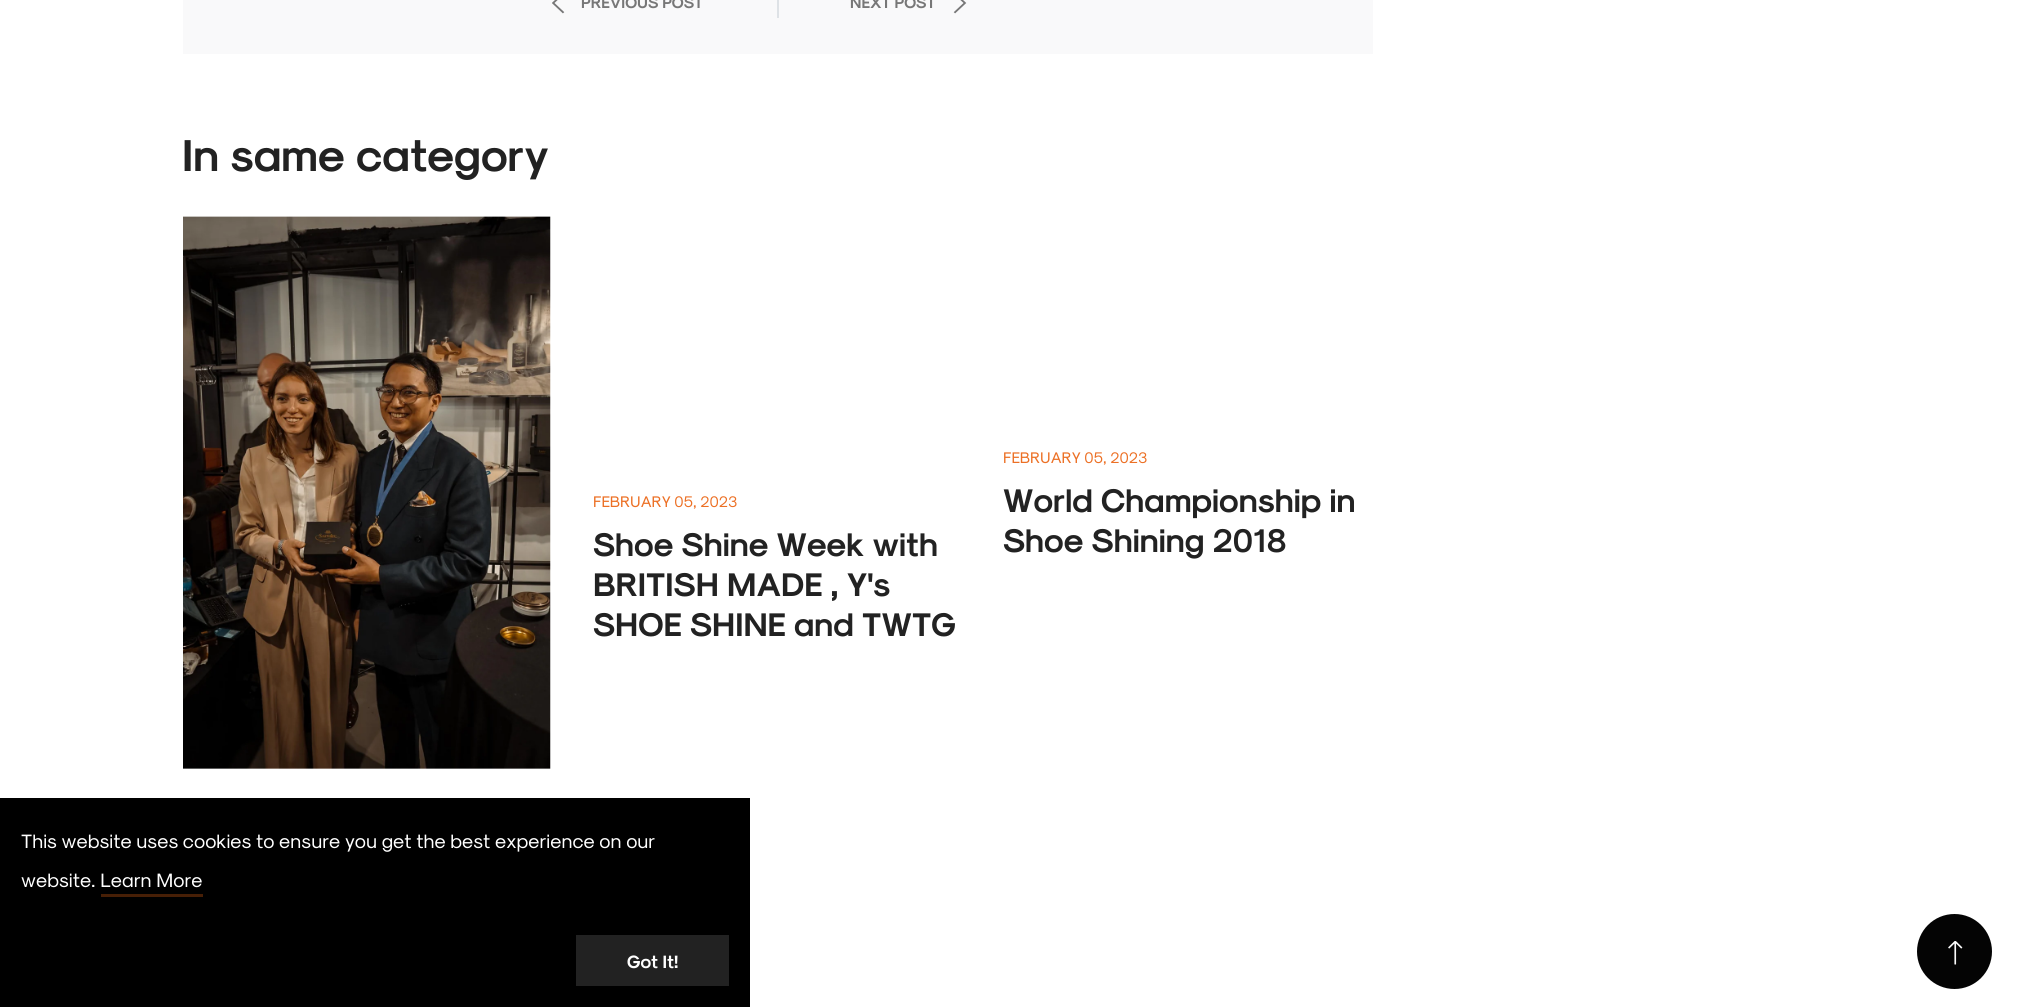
#include <cairo.h>
#include <math.h>
#include <stddef.h>


static void picture(cairo_t *cr, const char *path, double x, double y, double w, double h) {
    cairo_surface_t *image = cairo_image_surface_create_from_png(path);
    cairo_save(cr);
    cairo_set_source_surface(cr, image, x, y);
    cairo_rectangle(cr, x, y, w, h);
    cairo_fill(cr);
    cairo_restore(cr);
    cairo_surface_destroy(image);
}

int main(void) {
    cairo_surface_t *surface = cairo_image_surface_create(CAIRO_FORMAT_RGB24, 2032, 1007);
    cairo_t *cr = cairo_create(surface);
    cairo_font_options_t *options = cairo_font_options_create();
    cairo_font_options_set_hint_metrics(options, CAIRO_HINT_METRICS_OFF);
    cairo_font_options_set_hint_style(options, CAIRO_HINT_STYLE_NONE);
    cairo_set_font_options(cr, options);
    cairo_set_miter_limit(cr, 4);
    cairo_set_source_rgb(cr, 1, 1, 1);
    cairo_paint(cr);
    cairo_set_source_rgb(cr, 0.973, 0.976, 0.98);
    cairo_rectangle(cr, 183, 0, 1190, 54);
    cairo_fill(cr);
    picture(cr, "img1.png", 552, 0, 13, 14);
    cairo_select_font_face(cr, "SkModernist", CAIRO_FONT_SLANT_NORMAL, CAIRO_FONT_WEIGHT_BOLD);
    cairo_set_font_size(cr, 15.5);
    cairo_set_source_rgb(cr, 0.467, 0.467, 0.467);
    cairo_move_to(cr, 581, 8);
    cairo_show_text(cr, "PREVIOUS POST");
    cairo_set_source_rgb(cr, 0.871, 0.886, 0.902);
    cairo_rectangle(cr, 777, 0, 2, 18);
    cairo_fill(cr);
    cairo_set_source_rgb(cr, 0.467, 0.467, 0.467);
    cairo_move_to(cr, 850, 8);
    cairo_show_text(cr, "NEXT POST");
    picture(cr, "img2.png", 953, 0, 14, 14);
    cairo_set_font_size(cr, 45);
    cairo_set_source_rgb(cr, 0.133, 0.133, 0.133);
    cairo_move_to(cr, 182, 171);
    cairo_show_text(cr, "In same category");
    picture(cr, "img3.png", 183, 216, 368, 553);
    cairo_select_font_face(cr, "SkModernist", CAIRO_FONT_SLANT_NORMAL, CAIRO_FONT_WEIGHT_NORMAL);
    cairo_set_font_size(cr, 15.5);
    cairo_set_source_rgb(cr, 0.922, 0.439, 0.145);
    cairo_move_to(cr, 593, 507);
    cairo_show_text(cr, "FEBRUARY 05, 2023");
    cairo_select_font_face(cr, "SkModernist", CAIRO_FONT_SLANT_NORMAL, CAIRO_FONT_WEIGHT_BOLD);
    cairo_set_font_size(cr, 33);
    cairo_set_source_rgb(cr, 0.133, 0.133, 0.133);
    cairo_move_to(cr, 593, 556);
    cairo_show_text(cr, "Shoe Shine Week with");
    cairo_move_to(cr, 593, 596);
    cairo_show_text(cr, "BRITISH MADE , Y's");
    cairo_move_to(cr, 593, 636);
    cairo_show_text(cr, "SHOE SHINE and TWTG");
    cairo_select_font_face(cr, "SkModernist", CAIRO_FONT_SLANT_NORMAL, CAIRO_FONT_WEIGHT_NORMAL);
    cairo_set_font_size(cr, 15.5);
    cairo_set_source_rgb(cr, 0.922, 0.439, 0.145);
    cairo_move_to(cr, 1003, 463);
    cairo_show_text(cr, "FEBRUARY 05, 2023");
    cairo_select_font_face(cr, "SkModernist", CAIRO_FONT_SLANT_NORMAL, CAIRO_FONT_WEIGHT_BOLD);
    cairo_set_font_size(cr, 33);
    cairo_set_source_rgb(cr, 0.133, 0.133, 0.133);
    cairo_move_to(cr, 1003, 512);
    cairo_show_text(cr, "World Championship in");
    cairo_move_to(cr, 1003, 552);
    cairo_show_text(cr, "Shoe Shining 2018");
    cairo_set_source_rgb(cr, 0, 0, 0);
    cairo_rectangle(cr, 0, 798, 750, 209);
    cairo_fill(cr);
    cairo_select_font_face(cr, "SkModernist", CAIRO_FONT_SLANT_NORMAL, CAIRO_FONT_WEIGHT_NORMAL);
    cairo_set_font_size(cr, 19.5);
    cairo_set_source_rgb(cr, 1, 1, 1);
    cairo_move_to(cr, 21, 848);
    cairo_show_text(cr, "This website uses cookies to ensure you get the best experience on our");
    cairo_move_to(cr, 21, 887);
    cairo_show_text(cr, "website. Learn More");
    cairo_set_source_rgb(cr, 0.278, 0.122, 0.024);
    cairo_rectangle(cr, 101, 894, 102, 3);
    cairo_fill(cr);
    cairo_set_source_rgb(cr, 0.133, 0.133, 0.133);
    cairo_rectangle(cr, 576, 935, 153, 51);
    cairo_fill(cr);
    cairo_select_font_face(cr, "SkModernist", CAIRO_FONT_SLANT_NORMAL, CAIRO_FONT_WEIGHT_BOLD);
    cairo_set_font_size(cr, 18);
    cairo_set_source_rgb(cr, 1, 1, 1);
    cairo_move_to(cr, 627, 968);
    cairo_show_text(cr, "Got It!");
    cairo_set_source_rgb(cr, 0.016, 0.016, 0.016);
    cairo_new_path(cr);
    cairo_arc(cr, 1954.5, 951.5, 37.5, 0, 2 * M_PI);
    cairo_fill(cr);
    picture(cr, "img4.png", 1948, 941, 15, 24);
    cairo_surface_write_to_png(surface, "page.png");
    cairo_font_options_destroy(options);
    cairo_destroy(cr);
    cairo_surface_destroy(surface);
    return 0;
}
